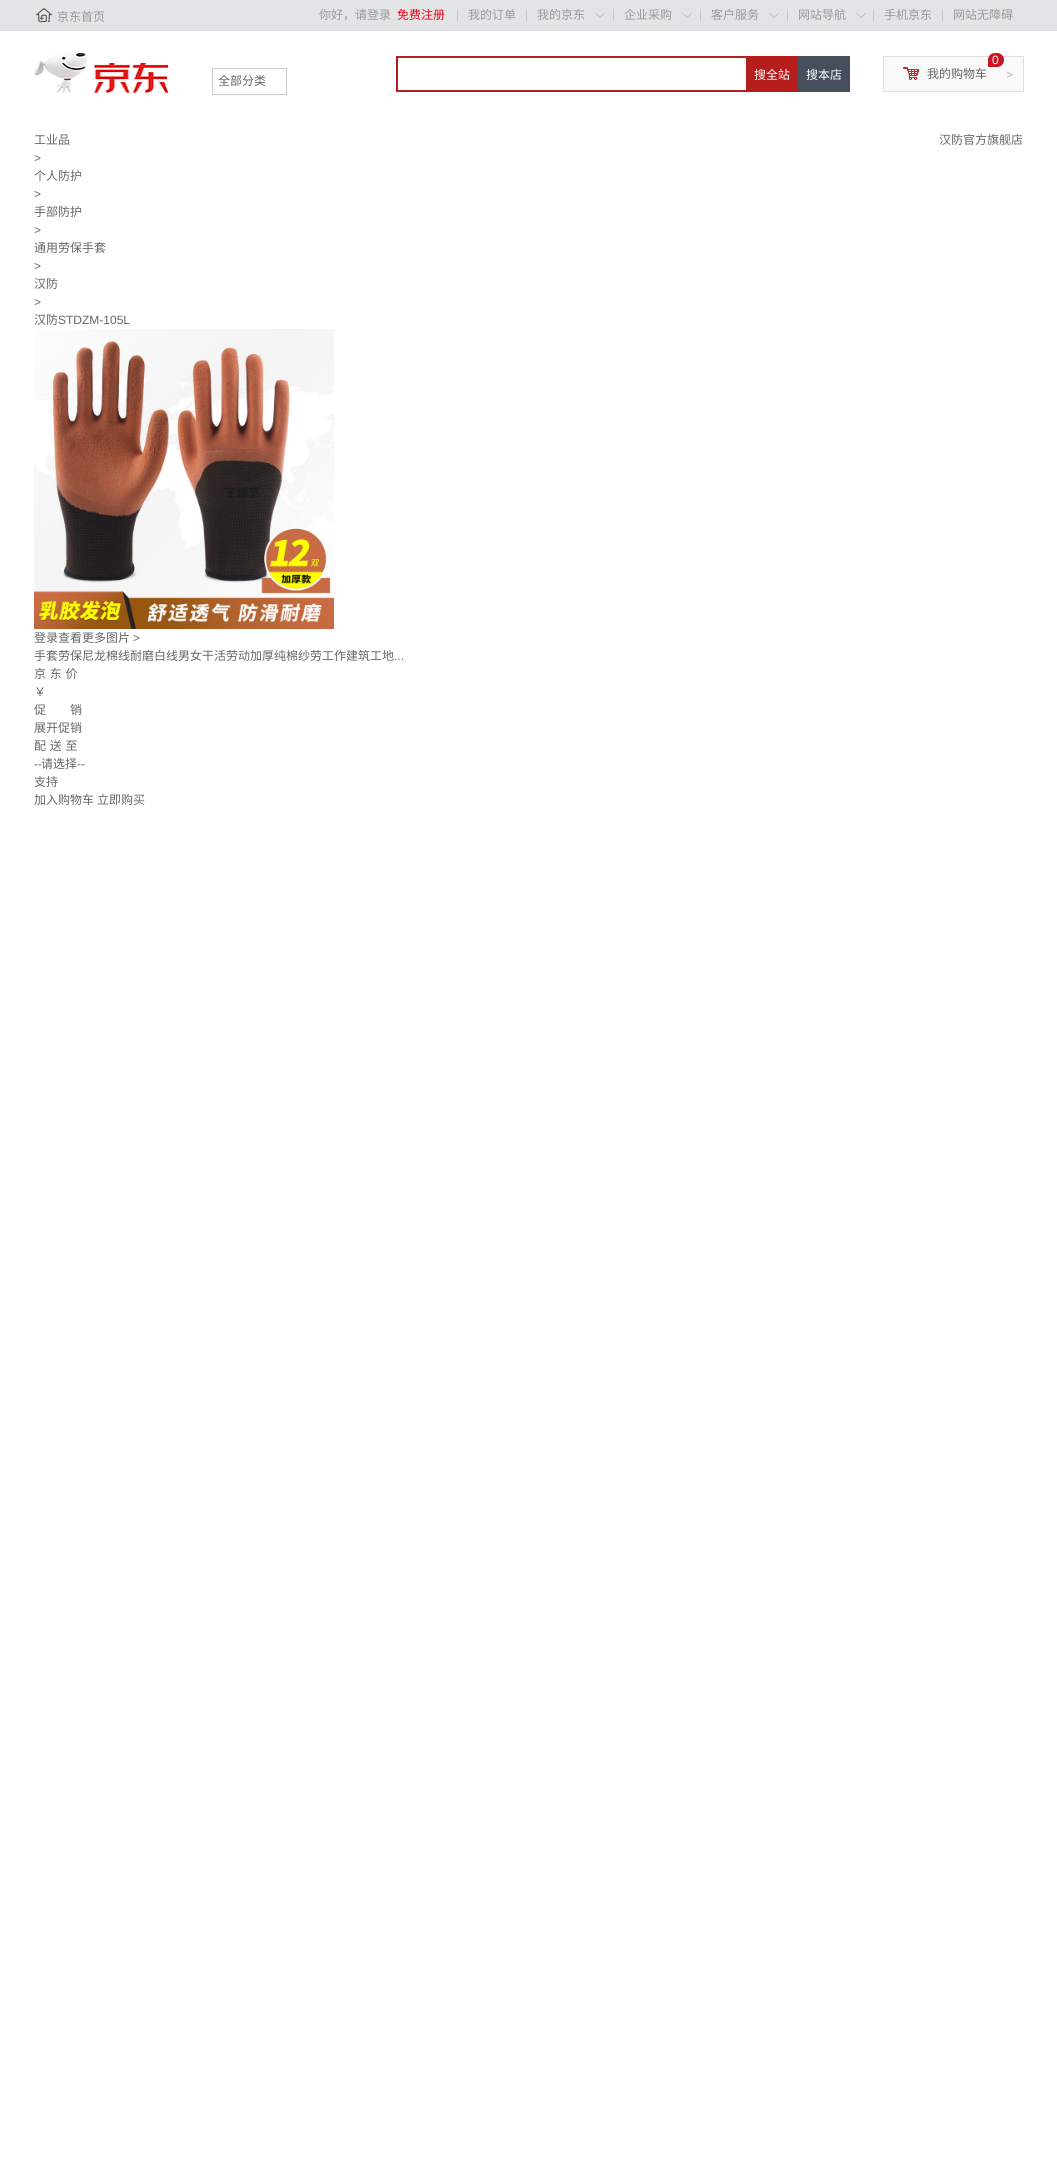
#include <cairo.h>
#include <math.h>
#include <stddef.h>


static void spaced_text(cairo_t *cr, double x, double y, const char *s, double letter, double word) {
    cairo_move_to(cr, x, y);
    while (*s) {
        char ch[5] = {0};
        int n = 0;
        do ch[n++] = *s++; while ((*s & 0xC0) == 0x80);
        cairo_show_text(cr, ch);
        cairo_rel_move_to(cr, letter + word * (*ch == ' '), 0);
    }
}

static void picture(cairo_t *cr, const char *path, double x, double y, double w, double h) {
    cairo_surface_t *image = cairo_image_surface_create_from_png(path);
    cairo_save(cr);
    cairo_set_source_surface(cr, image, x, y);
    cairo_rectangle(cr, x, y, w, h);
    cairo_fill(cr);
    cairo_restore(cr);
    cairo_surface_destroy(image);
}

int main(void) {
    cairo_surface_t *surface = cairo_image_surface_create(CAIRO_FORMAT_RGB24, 1057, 2175);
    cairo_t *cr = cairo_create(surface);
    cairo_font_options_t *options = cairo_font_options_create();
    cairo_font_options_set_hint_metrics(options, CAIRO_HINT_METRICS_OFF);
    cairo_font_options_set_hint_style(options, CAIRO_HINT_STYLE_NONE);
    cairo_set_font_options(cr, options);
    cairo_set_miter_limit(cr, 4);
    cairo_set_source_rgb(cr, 1, 1, 1);
    cairo_paint(cr);
    cairo_set_source_rgb(cr, 0.89, 0.894, 0.898);
    cairo_rectangle(cr, 0, 0, 1057, 30);
    cairo_fill(cr);
    cairo_set_source_rgb(cr, 0.867, 0.867, 0.867);
    cairo_rectangle(cr, 0, 30, 1057, 1);
    cairo_fill(cr);
    picture(cr, "img1.png", 36, 8, 16, 15);
    cairo_select_font_face(cr, "Noto Sans CJK SC", CAIRO_FONT_SLANT_NORMAL, CAIRO_FONT_WEIGHT_NORMAL);
    cairo_set_font_size(cr, 12);
    cairo_set_source_rgb(cr, 0.6, 0.6, 0.6);
    cairo_move_to(cr, 57, 21);
    cairo_show_text(cr, "京东首页");
    cairo_move_to(cr, 319, 19);
    cairo_show_text(cr, "你好，请登录");
    cairo_set_source_rgb(cr, 0.953, 0.008, 0.075);
    cairo_move_to(cr, 397, 19);
    cairo_show_text(cr, "免费注册");
    cairo_set_source_rgb(cr, 0.8, 0.8, 0.8);
    cairo_rectangle(cr, 457, 9, 1, 12);
    cairo_fill(cr);
    cairo_set_source_rgb(cr, 0.6, 0.6, 0.6);
    cairo_move_to(cr, 468, 19);
    cairo_show_text(cr, "我的订单");
    cairo_set_source_rgb(cr, 0.8, 0.8, 0.8);
    cairo_rectangle(cr, 526, 9, 1, 12);
    cairo_fill(cr);
    cairo_set_source_rgb(cr, 0.6, 0.6, 0.6);
    cairo_move_to(cr, 537, 19);
    cairo_show_text(cr, "我的京东");
    picture(cr, "img2.png", 595, 13, 10, 5);
    cairo_set_source_rgb(cr, 0.8, 0.8, 0.8);
    cairo_rectangle(cr, 613, 9, 1, 12);
    cairo_fill(cr);
    cairo_set_source_rgb(cr, 0.6, 0.6, 0.6);
    cairo_move_to(cr, 624, 19);
    cairo_show_text(cr, "企业采购");
    picture(cr, "img2.png", 682, 13, 10, 5);
    cairo_set_source_rgb(cr, 0.8, 0.8, 0.8);
    cairo_rectangle(cr, 700, 9, 1, 12);
    cairo_fill(cr);
    cairo_set_source_rgb(cr, 0.6, 0.6, 0.6);
    cairo_move_to(cr, 711, 19);
    cairo_show_text(cr, "客户服务");
    picture(cr, "img2.png", 769, 13, 10, 5);
    cairo_set_source_rgb(cr, 0.8, 0.8, 0.8);
    cairo_rectangle(cr, 787, 9, 1, 12);
    cairo_fill(cr);
    cairo_set_source_rgb(cr, 0.6, 0.6, 0.6);
    cairo_move_to(cr, 798, 19);
    cairo_show_text(cr, "网站导航");
    picture(cr, "img2.png", 856, 13, 10, 5);
    cairo_set_source_rgb(cr, 0.8, 0.8, 0.8);
    cairo_rectangle(cr, 873, 9, 1, 12);
    cairo_fill(cr);
    cairo_set_source_rgb(cr, 0.6, 0.6, 0.6);
    cairo_move_to(cr, 884, 19);
    cairo_show_text(cr, "手机京东");
    cairo_set_source_rgb(cr, 0.8, 0.8, 0.8);
    cairo_rectangle(cr, 942, 9, 1, 12);
    cairo_fill(cr);
    cairo_set_source_rgb(cr, 0.6, 0.6, 0.6);
    cairo_move_to(cr, 953, 19);
    cairo_show_text(cr, "网站无障碍");
    picture(cr, "img3.png", 34, 51, 135, 42);
    cairo_rectangle(cr, 212.5, 68.5, 74, 26);
    cairo_set_source_rgb(cr, 0.8, 0.8, 0.8);
    cairo_set_line_width(cr, 1);
    cairo_stroke(cr);
    cairo_set_source_rgb(cr, 0.4, 0.4, 0.4);
    cairo_move_to(cr, 218, 85);
    cairo_show_text(cr, "全部分类");
    cairo_set_source_rgb(cr, 0.714, 0.114, 0.114);
    cairo_rectangle(cr, 396, 56, 350, 2);
    cairo_fill(cr);
    cairo_rectangle(cr, 396, 90, 350, 2);
    cairo_fill(cr);
    cairo_rectangle(cr, 396, 56, 2, 36);
    cairo_fill(cr);
    cairo_rectangle(cr, 746, 56, 52, 36);
    cairo_fill(cr);
    cairo_set_source_rgb(cr, 1, 1, 1);
    cairo_move_to(cr, 754, 79);
    cairo_show_text(cr, "搜全站");
    cairo_set_source_rgb(cr, 0.278, 0.306, 0.361);
    cairo_rectangle(cr, 798, 56, 52, 36);
    cairo_fill(cr);
    cairo_set_source_rgb(cr, 1, 1, 1);
    cairo_move_to(cr, 806, 79);
    cairo_show_text(cr, "搜本店");
    cairo_set_source_rgb(cr, 0.976, 0.976, 0.976);
    cairo_rectangle(cr, 883.5, 56.5, 140, 35);
    cairo_fill_preserve(cr);
    cairo_set_source_rgb(cr, 0.875, 0.875, 0.875);
    cairo_stroke(cr);
    cairo_set_source_rgb(cr, 0.784, 0.086, 0.137);
    cairo_new_path(cr);
    cairo_move_to(cr, 995, 53);
    cairo_line_to(cr, 997, 53);
    cairo_curve_to(cr, 1001, 53, 1004, 56, 1004, 60);
    cairo_curve_to(cr, 1004, 64, 1001, 67, 997, 67);
    cairo_line_to(cr, 988, 67);
    cairo_line_to(cr, 988, 60);
    cairo_curve_to(cr, 988, 56, 991, 53, 995, 53);
    cairo_close_path(cr);
    cairo_fill(cr);
    cairo_select_font_face(cr, "Liberation Sans", CAIRO_FONT_SLANT_NORMAL, CAIRO_FONT_WEIGHT_NORMAL);
    cairo_set_source_rgb(cr, 1, 1, 1);
    cairo_move_to(cr, 992, 64);
    cairo_show_text(cr, "0");
    picture(cr, "img4.png", 903, 67, 16, 13);
    cairo_select_font_face(cr, "Noto Sans CJK SC", CAIRO_FONT_SLANT_NORMAL, CAIRO_FONT_WEIGHT_NORMAL);
    cairo_set_source_rgb(cr, 0.4, 0.4, 0.4);
    cairo_move_to(cr, 927, 78);
    cairo_show_text(cr, "我的购物车");
    cairo_select_font_face(cr, "Liberation Serif", CAIRO_FONT_SLANT_NORMAL, CAIRO_FONT_WEIGHT_NORMAL);
    cairo_set_font_size(cr, 13);
    cairo_set_source_rgb(cr, 0.6, 0.6, 0.6);
    cairo_move_to(cr, 1006, 79);
    cairo_show_text(cr, ">");
    cairo_select_font_face(cr, "Noto Sans CJK SC", CAIRO_FONT_SLANT_NORMAL, CAIRO_FONT_WEIGHT_NORMAL);
    cairo_set_font_size(cr, 12);
    cairo_set_source_rgb(cr, 0.4, 0.4, 0.4);
    cairo_move_to(cr, 34, 144);
    cairo_show_text(cr, "工业品");
    cairo_select_font_face(cr, "Liberation Sans", CAIRO_FONT_SLANT_NORMAL, CAIRO_FONT_WEIGHT_NORMAL);
    cairo_move_to(cr, 34, 162);
    cairo_show_text(cr, ">");
    cairo_select_font_face(cr, "Noto Sans CJK SC", CAIRO_FONT_SLANT_NORMAL, CAIRO_FONT_WEIGHT_NORMAL);
    cairo_move_to(cr, 34, 180);
    cairo_show_text(cr, "个人防护");
    cairo_select_font_face(cr, "Liberation Sans", CAIRO_FONT_SLANT_NORMAL, CAIRO_FONT_WEIGHT_NORMAL);
    cairo_move_to(cr, 34, 198);
    cairo_show_text(cr, ">");
    cairo_select_font_face(cr, "Noto Sans CJK SC", CAIRO_FONT_SLANT_NORMAL, CAIRO_FONT_WEIGHT_NORMAL);
    cairo_move_to(cr, 34, 216);
    cairo_show_text(cr, "手部防护");
    cairo_select_font_face(cr, "Liberation Sans", CAIRO_FONT_SLANT_NORMAL, CAIRO_FONT_WEIGHT_NORMAL);
    cairo_move_to(cr, 34, 234);
    cairo_show_text(cr, ">");
    cairo_select_font_face(cr, "Noto Sans CJK SC", CAIRO_FONT_SLANT_NORMAL, CAIRO_FONT_WEIGHT_NORMAL);
    cairo_move_to(cr, 34, 252);
    cairo_show_text(cr, "通用劳保手套");
    cairo_select_font_face(cr, "Liberation Sans", CAIRO_FONT_SLANT_NORMAL, CAIRO_FONT_WEIGHT_NORMAL);
    cairo_move_to(cr, 34, 270);
    cairo_show_text(cr, ">");
    cairo_select_font_face(cr, "Noto Sans CJK SC", CAIRO_FONT_SLANT_NORMAL, CAIRO_FONT_WEIGHT_NORMAL);
    cairo_move_to(cr, 34, 288);
    cairo_show_text(cr, "汉防");
    cairo_select_font_face(cr, "Liberation Sans", CAIRO_FONT_SLANT_NORMAL, CAIRO_FONT_WEIGHT_NORMAL);
    cairo_move_to(cr, 34, 306);
    cairo_show_text(cr, ">");
    cairo_select_font_face(cr, "Noto Sans CJK SC", CAIRO_FONT_SLANT_NORMAL, CAIRO_FONT_WEIGHT_NORMAL);
    cairo_move_to(cr, 34, 324);
    cairo_show_text(cr, "汉防");
    cairo_select_font_face(cr, "Liberation Sans", CAIRO_FONT_SLANT_NORMAL, CAIRO_FONT_WEIGHT_NORMAL);
    cairo_move_to(cr, 58, 324);
    cairo_show_text(cr, "STDZM-105L");
    cairo_select_font_face(cr, "Noto Sans CJK SC", CAIRO_FONT_SLANT_NORMAL, CAIRO_FONT_WEIGHT_NORMAL);
    cairo_move_to(cr, 939, 144);
    cairo_show_text(cr, "汉防官方旗舰店");
    picture(cr, "img5.png", 34, 329, 300, 300);
    cairo_move_to(cr, 34, 642);
    cairo_show_text(cr, "登录查看更多图片");
    cairo_select_font_face(cr, "Liberation Sans", CAIRO_FONT_SLANT_NORMAL, CAIRO_FONT_WEIGHT_NORMAL);
    cairo_move_to(cr, 133, 642);
    cairo_show_text(cr, ">");
    cairo_select_font_face(cr, "Noto Sans CJK SC", CAIRO_FONT_SLANT_NORMAL, CAIRO_FONT_WEIGHT_NORMAL);
    cairo_move_to(cr, 34, 660);
    cairo_show_text(cr, "手套劳保尼龙棉线耐磨白线男女干活劳动加厚纯棉纱劳工作建筑工地");
    cairo_select_font_face(cr, "Liberation Sans", CAIRO_FONT_SLANT_NORMAL, CAIRO_FONT_WEIGHT_NORMAL);
    cairo_move_to(cr, 394, 660);
    cairo_show_text(cr, "...");
    cairo_select_font_face(cr, "Noto Sans CJK SC", CAIRO_FONT_SLANT_NORMAL, CAIRO_FONT_WEIGHT_NORMAL);
    spaced_text(cr, 34, 678, "京 东 价", 0, 1);
    cairo_move_to(cr, 34, 696);
    cairo_show_text(cr, "￥");
    cairo_move_to(cr, 34, 714);
    cairo_show_text(cr, "促　　销");
    cairo_move_to(cr, 34, 732);
    cairo_show_text(cr, "展开促销");
    spaced_text(cr, 34, 750, "配 送 至", 0, 1);
    cairo_select_font_face(cr, "Liberation Sans", CAIRO_FONT_SLANT_NORMAL, CAIRO_FONT_WEIGHT_NORMAL);
    cairo_move_to(cr, 34, 768);
    cairo_show_text(cr, "--");
    cairo_select_font_face(cr, "Noto Sans CJK SC", CAIRO_FONT_SLANT_NORMAL, CAIRO_FONT_WEIGHT_NORMAL);
    cairo_move_to(cr, 41, 768);
    cairo_show_text(cr, "请选择");
    cairo_select_font_face(cr, "Liberation Sans", CAIRO_FONT_SLANT_NORMAL, CAIRO_FONT_WEIGHT_NORMAL);
    cairo_move_to(cr, 77, 768);
    cairo_show_text(cr, "--");
    cairo_select_font_face(cr, "Noto Sans CJK SC", CAIRO_FONT_SLANT_NORMAL, CAIRO_FONT_WEIGHT_NORMAL);
    cairo_move_to(cr, 34, 786);
    cairo_show_text(cr, "支持");
    cairo_move_to(cr, 34, 804);
    cairo_show_text(cr, "加入购物车");
    cairo_move_to(cr, 97, 804);
    cairo_show_text(cr, "立即购买");
    cairo_surface_write_to_png(surface, "page.png");
    cairo_font_options_destroy(options);
    cairo_destroy(cr);
    cairo_surface_destroy(surface);
    return 0;
}
